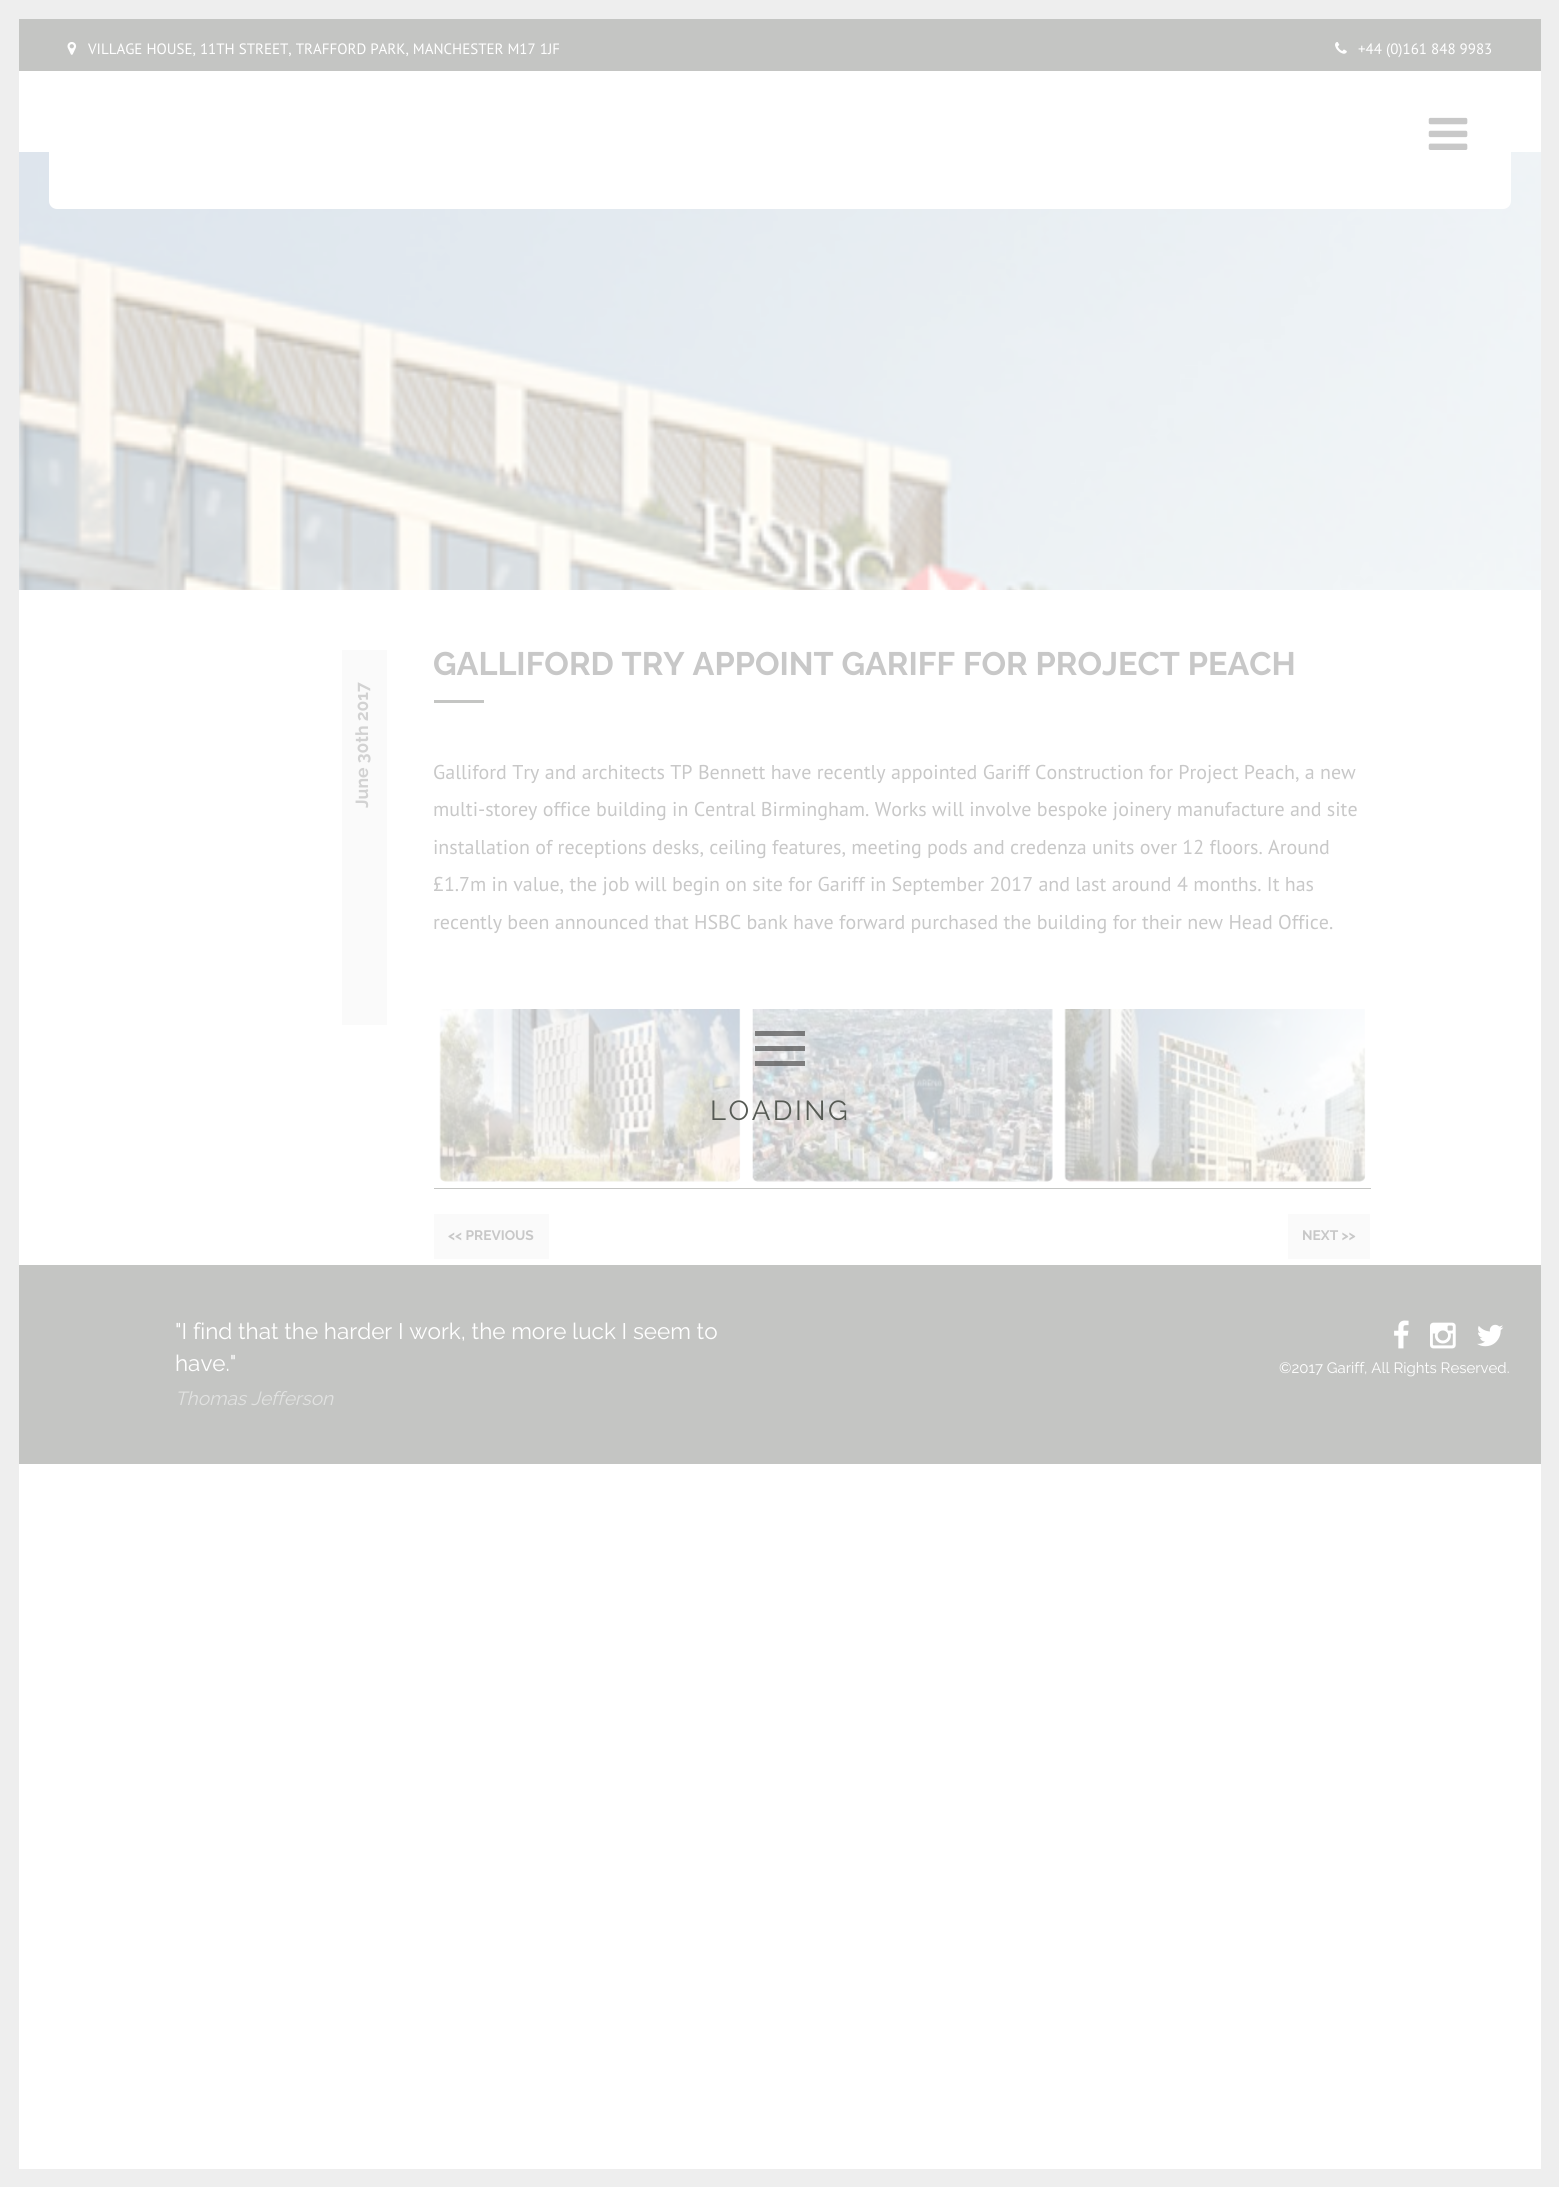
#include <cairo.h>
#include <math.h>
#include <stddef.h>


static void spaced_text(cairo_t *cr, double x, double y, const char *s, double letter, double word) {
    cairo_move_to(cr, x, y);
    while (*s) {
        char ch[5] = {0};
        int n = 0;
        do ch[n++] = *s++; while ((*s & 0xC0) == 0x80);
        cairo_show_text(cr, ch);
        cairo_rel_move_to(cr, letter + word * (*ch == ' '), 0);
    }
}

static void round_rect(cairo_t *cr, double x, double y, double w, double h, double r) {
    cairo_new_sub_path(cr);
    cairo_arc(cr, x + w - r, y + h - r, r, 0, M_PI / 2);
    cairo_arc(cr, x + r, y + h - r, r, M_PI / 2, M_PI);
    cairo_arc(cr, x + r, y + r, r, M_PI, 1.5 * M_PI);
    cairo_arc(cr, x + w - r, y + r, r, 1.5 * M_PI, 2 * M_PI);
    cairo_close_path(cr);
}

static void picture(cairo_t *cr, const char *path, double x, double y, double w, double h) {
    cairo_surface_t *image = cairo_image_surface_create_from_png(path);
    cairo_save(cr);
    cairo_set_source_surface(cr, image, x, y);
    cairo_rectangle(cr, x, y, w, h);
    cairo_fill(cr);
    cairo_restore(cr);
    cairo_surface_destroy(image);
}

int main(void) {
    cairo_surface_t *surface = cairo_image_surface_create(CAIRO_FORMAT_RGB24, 1559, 2187);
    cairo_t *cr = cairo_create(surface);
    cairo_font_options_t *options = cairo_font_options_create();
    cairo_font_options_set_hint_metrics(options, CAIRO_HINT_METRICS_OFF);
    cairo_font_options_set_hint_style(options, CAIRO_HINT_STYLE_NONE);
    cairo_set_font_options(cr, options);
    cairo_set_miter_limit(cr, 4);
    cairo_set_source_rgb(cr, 1, 1, 1);
    cairo_paint(cr);
    cairo_set_source_rgb(cr, 0.933, 0.933, 0.933);
    cairo_rectangle(cr, 19, 0, 1522, 19);
    cairo_fill(cr);
    cairo_rectangle(cr, 1541, 0, 18, 2187);
    cairo_fill(cr);
    cairo_rectangle(cr, 0, 0, 19, 2187);
    cairo_fill(cr);
    cairo_set_source_rgb(cr, 0.769, 0.773, 0.765);
    cairo_rectangle(cr, 19, 19, 1522, 52);
    cairo_fill(cr);
    picture(cr, "img1.png", 67, 42, 10, 13);
    cairo_select_font_face(cr, "PT Sans", CAIRO_FONT_SLANT_NORMAL, CAIRO_FONT_WEIGHT_NORMAL);
    cairo_set_font_size(cr, 15);
    cairo_set_source_rgb(cr, 1, 1, 1);
    cairo_move_to(cr, 88, 54);
    cairo_show_text(cr, "VILLAGE HOUSE, 11TH STREET, TRAFFORD PARK, MANCHESTER M17 1JF");
    picture(cr, "img2.png", 1335, 42, 12, 12);
    cairo_move_to(cr, 1358, 54);
    cairo_show_text(cr, "+44 (0)161 848 9983");
    picture(cr, "img4.png", 19, 152, 1522, 438);
    round_rect(cr, 49, 71, 1462, 138, 8);
    cairo_fill(cr);
    picture(cr, "img3.png", 1428, 117, 40, 33);
    cairo_set_source_rgb(cr, 0.98, 0.98, 0.98);
    cairo_rectangle(cr, 342, 650, 45, 375);
    cairo_fill(cr);
    cairo_select_font_face(cr, "Raleway", CAIRO_FONT_SLANT_NORMAL, CAIRO_FONT_WEIGHT_BOLD);
    cairo_set_font_size(cr, 17.5);
    cairo_set_source_rgb(cr, 0.824, 0.824, 0.824);
    cairo_save(cr);
    cairo_translate(cr, 368, 808);
    cairo_rotate(cr, -90 * M_PI / 180);
    cairo_move_to(cr, 0, 0);
    cairo_show_text(cr, "June 30th 2017");
    cairo_restore(cr);
    cairo_set_font_size(cr, 32.5);
    cairo_set_source_rgb(cr, 0.784, 0.784, 0.784);
    cairo_move_to(cr, 433, 675);
    cairo_show_text(cr, "GALLIFORD TRY APPOINT GARIFF FOR PROJECT PEACH");
    cairo_set_source_rgb(cr, 0.769, 0.773, 0.765);
    cairo_rectangle(cr, 434, 700, 50, 3);
    cairo_fill(cr);
    cairo_select_font_face(cr, "PT Sans", CAIRO_FONT_SLANT_NORMAL, CAIRO_FONT_WEIGHT_NORMAL);
    cairo_set_font_size(cr, 20);
    cairo_set_source_rgb(cr, 0.784, 0.784, 0.784);
    cairo_move_to(cr, 433, 779);
    cairo_show_text(cr, "Galliford Try and architects TP Bennett have recently appointed Gariff Construction for Project Peach, a new");
    cairo_move_to(cr, 433, 816);
    cairo_show_text(cr, "multi-storey office building in Central Birmingham. Works will involve bespoke joinery manufacture and site");
    cairo_move_to(cr, 433, 854);
    cairo_show_text(cr, "installation of receptions desks, ceiling features, meeting pods and credenza units over 12 floors. Around");
    cairo_move_to(cr, 433, 891);
    cairo_show_text(cr, "£1.7m in value, the job will begin on site for Gariff in September 2017 and last around 4 months. It has");
    cairo_move_to(cr, 433, 929);
    cairo_show_text(cr, "recently been announced that HSBC bank have forward purchased the building for their new Head Office.");
    picture(cr, "img5.png", 439, 1009, 302, 173);
    picture(cr, "img6.png", 752, 1009, 301, 173);
    picture(cr, "img7.png", 1064, 1009, 302, 173);
    cairo_set_source_rgb(cr, 0.769, 0.773, 0.765);
    cairo_rectangle(cr, 434, 1188, 937, 1);
    cairo_fill(cr);
    cairo_set_source_rgb(cr, 0.98, 0.98, 0.98);
    cairo_rectangle(cr, 434, 1214, 115, 45);
    cairo_fill(cr);
    cairo_select_font_face(cr, "Raleway", CAIRO_FONT_SLANT_NORMAL, CAIRO_FONT_WEIGHT_BOLD);
    cairo_set_font_size(cr, 13.75);
    cairo_set_source_rgb(cr, 0.784, 0.784, 0.784);
    cairo_move_to(cr, 448, 1240);
    cairo_show_text(cr, "<< PREVIOUS");
    cairo_set_source_rgb(cr, 0.98, 0.98, 0.98);
    cairo_rectangle(cr, 1288, 1214, 82, 45);
    cairo_fill(cr);
    cairo_set_source_rgb(cr, 0.784, 0.784, 0.784);
    cairo_move_to(cr, 1302, 1240);
    cairo_show_text(cr, "NEXT >>");
    cairo_set_source_rgb(cr, 0.769, 0.773, 0.765);
    cairo_rectangle(cr, 19, 1265, 1522, 199);
    cairo_fill(cr);
    cairo_select_font_face(cr, "Raleway", CAIRO_FONT_SLANT_NORMAL, CAIRO_FONT_WEIGHT_NORMAL);
    cairo_set_font_size(cr, 22.5);
    cairo_set_source_rgb(cr, 1, 1, 1);
    cairo_move_to(cr, 175, 1339);
    cairo_show_text(cr, "\"I find that the harder I work, the more luck I seem to");
    cairo_move_to(cr, 175, 1371);
    cairo_show_text(cr, "have.\"");
    cairo_select_font_face(cr, "Raleway", CAIRO_FONT_SLANT_ITALIC, CAIRO_FONT_WEIGHT_NORMAL);
    cairo_set_font_size(cr, 19);
    cairo_set_source_rgb(cr, 0.882, 0.886, 0.882);
    cairo_move_to(cr, 175, 1405);
    cairo_show_text(cr, "Thomas Jefferson");
    picture(cr, "img8.png", 1394, 1320, 15, 29);
    picture(cr, "img9.png", 1430, 1322, 26, 27);
    picture(cr, "img10.png", 1477, 1324, 27, 23);
    cairo_select_font_face(cr, "Raleway", CAIRO_FONT_SLANT_NORMAL, CAIRO_FONT_WEIGHT_NORMAL);
    cairo_set_font_size(cr, 15);
    cairo_set_source_rgb(cr, 1, 1, 1);
    cairo_move_to(cr, 1279, 1373);
    cairo_show_text(cr, "©2017 Gariff, All Rights Reserved.");
    cairo_set_source_rgba(cr, 0.333, 0.333, 0.333, 0.73);
    cairo_rectangle(cr, 755, 1031, 50, 5);
    cairo_fill(cr);
    cairo_rectangle(cr, 755, 1046, 50, 5);
    cairo_fill(cr);
    cairo_rectangle(cr, 755, 1061, 50, 5);
    cairo_fill(cr);
    cairo_set_font_size(cr, 27.5);
    cairo_set_source_rgb(cr, 0.337, 0.353, 0.329);
    spaced_text(cr, 710, 1120, "LOADING", 2.5, 0);
    cairo_set_source_rgb(cr, 0.933, 0.933, 0.933);
    cairo_rectangle(cr, 19, 2169, 1522, 18);
    cairo_fill(cr);
    cairo_surface_write_to_png(surface, "page.png");
    cairo_font_options_destroy(options);
    cairo_destroy(cr);
    cairo_surface_destroy(surface);
    return 0;
}
